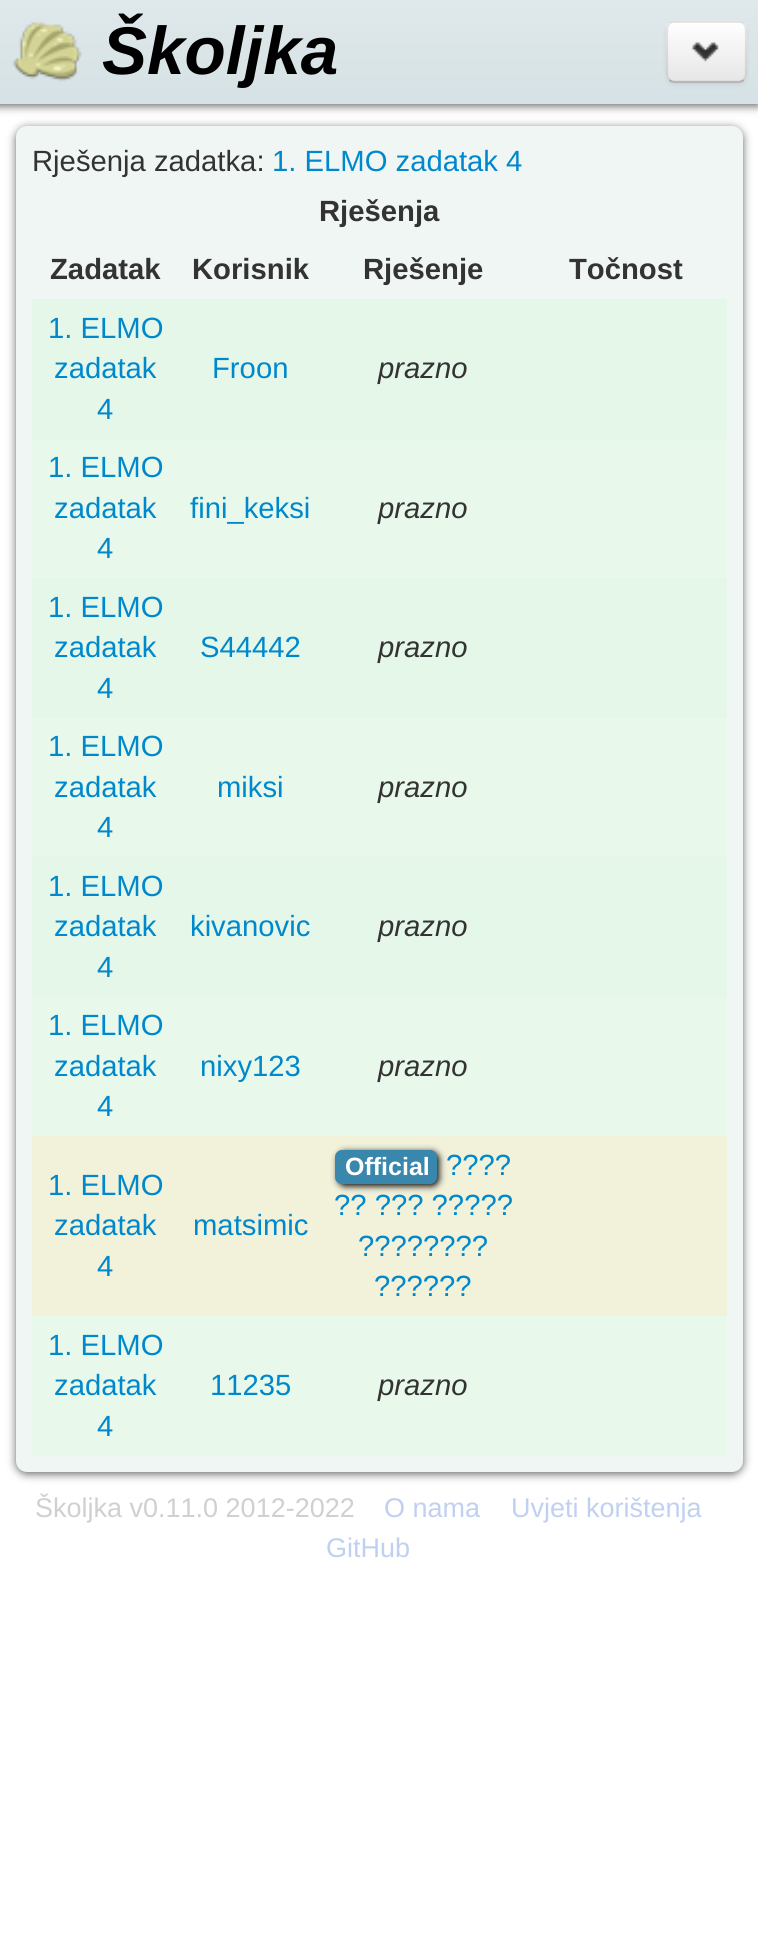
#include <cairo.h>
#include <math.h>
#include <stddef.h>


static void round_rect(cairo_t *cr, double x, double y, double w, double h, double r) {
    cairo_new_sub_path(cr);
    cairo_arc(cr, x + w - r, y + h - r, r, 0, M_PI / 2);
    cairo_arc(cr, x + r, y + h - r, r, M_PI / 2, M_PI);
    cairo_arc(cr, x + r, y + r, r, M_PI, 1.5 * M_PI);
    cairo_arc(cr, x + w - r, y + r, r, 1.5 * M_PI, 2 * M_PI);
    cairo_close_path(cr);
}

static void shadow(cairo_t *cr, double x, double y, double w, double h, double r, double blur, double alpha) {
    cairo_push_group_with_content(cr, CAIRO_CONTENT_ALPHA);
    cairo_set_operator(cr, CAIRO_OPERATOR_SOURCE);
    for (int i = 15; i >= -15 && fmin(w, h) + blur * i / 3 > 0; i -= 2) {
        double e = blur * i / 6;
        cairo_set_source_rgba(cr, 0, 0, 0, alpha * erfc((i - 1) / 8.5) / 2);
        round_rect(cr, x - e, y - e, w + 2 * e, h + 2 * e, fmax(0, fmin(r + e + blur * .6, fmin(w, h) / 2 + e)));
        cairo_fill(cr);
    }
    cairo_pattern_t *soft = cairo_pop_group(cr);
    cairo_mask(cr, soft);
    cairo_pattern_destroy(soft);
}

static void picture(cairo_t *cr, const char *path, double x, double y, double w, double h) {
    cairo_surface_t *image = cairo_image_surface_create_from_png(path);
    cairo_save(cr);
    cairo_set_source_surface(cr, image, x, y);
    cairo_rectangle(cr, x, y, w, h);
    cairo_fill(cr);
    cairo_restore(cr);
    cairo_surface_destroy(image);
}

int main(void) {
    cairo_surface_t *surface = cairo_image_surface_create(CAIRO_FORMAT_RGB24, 758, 1940);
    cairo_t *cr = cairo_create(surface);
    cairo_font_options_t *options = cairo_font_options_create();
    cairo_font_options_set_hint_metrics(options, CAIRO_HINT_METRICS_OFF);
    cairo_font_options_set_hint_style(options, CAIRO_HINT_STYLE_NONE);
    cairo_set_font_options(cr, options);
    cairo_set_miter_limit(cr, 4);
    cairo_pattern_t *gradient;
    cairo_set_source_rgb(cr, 1, 1, 1);
    cairo_paint(cr);
    cairo_set_source_rgb(cr, 0.4, 0.4, 0.4);
    shadow(cr, -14, 2, 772, 104, 0, 4.5, 1);
    gradient = cairo_pattern_create_linear(-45, 0, -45, 104);
    cairo_pattern_add_color_stop_rgba(gradient, 0, 0.875, 0.91, 0.922, 1);
    cairo_pattern_add_color_stop_rgba(gradient, 1, 0.839, 0.886, 0.898, 1);
    cairo_set_source(cr, gradient);
    cairo_pattern_destroy(gradient);
    cairo_rectangle(cr, 0, 0, 758, 104);
    cairo_fill(cr);
    picture(cr, "img1.png", 13, 22, 69, 60);
    cairo_select_font_face(cr, "Liberation Sans", CAIRO_FONT_SLANT_ITALIC, CAIRO_FONT_WEIGHT_BOLD);
    cairo_set_font_size(cr, 67.5);
    cairo_set_source_rgb(cr, 0, 0, 0);
    cairo_move_to(cr, 102, 74);
    cairo_show_text(cr, "Školjka");
    cairo_set_source_rgb(cr, 0, 0, 0);
    shadow(cr, 666, 23, 81, 63, 9, 2, 0.05);
    cairo_set_source_rgb(cr, 0.961, 0.961, 0.961);
    round_rect(cr, 666, 20, 81, 63, 9);
    cairo_fill(cr);
    cairo_save(cr);
    round_rect(cr, 666, 20, 81, 63, 9);
    cairo_clip(cr);
    gradient = cairo_pattern_create_linear(707, 22, 707, 81);
    cairo_pattern_add_color_stop_rgba(gradient, 0, 1, 1, 1, 1);
    cairo_pattern_add_color_stop_rgba(gradient, 1, 0.902, 0.902, 0.902, 1);
    cairo_set_source(cr, gradient);
    cairo_pattern_destroy(gradient);
    cairo_rectangle(cr, 666, 23, 81, 58);
    cairo_fill(cr);
    cairo_restore(cr);
    cairo_new_path(cr);
    cairo_move_to(cr, 743.5, 80);
    cairo_curve_to(cr, 742, 81.5, 740, 82, 738, 82);
    cairo_line_to(cr, 675, 82);
    cairo_curve_to(cr, 673, 82, 671, 81.5, 669.5, 80);
    cairo_set_source_rgba(cr, 0, 0, 0, 0.25);
    cairo_set_line_width(cr, 2.2);
    cairo_stroke(cr);
    cairo_new_path(cr);
    cairo_move_to(cr, 669.5, 80);
    cairo_curve_to(cr, 668, 78.5, 667, 76.5, 667, 74);
    cairo_line_to(cr, 667, 29.5);
    cairo_curve_to(cr, 667, 27, 668, 25, 669.5, 23.5);
    cairo_curve_to(cr, 671, 22, 673, 21.5, 675, 21.5);
    cairo_line_to(cr, 738, 21.5);
    cairo_curve_to(cr, 740, 21.5, 742, 22, 743.5, 23.5);
    cairo_curve_to(cr, 745, 25, 746, 27, 746, 29);
    cairo_line_to(cr, 746, 74);
    cairo_curve_to(cr, 746, 76.5, 745, 78.5, 743.5, 80);
    cairo_set_source_rgba(cr, 0, 0, 0, 0.1);
    cairo_stroke(cr);
    picture(cr, "img2.png", 691, 42, 28, 20);
    cairo_set_source_rgb(cr, 0.4, 0.4, 0.4);
    shadow(cr, 16, 128, 727, 1346, 11, 4.5, 1);
    cairo_set_source_rgb(cr, 0.941, 0.961, 0.957);
    round_rect(cr, 16, 126, 727, 1346, 11);
    cairo_fill(cr);
    cairo_select_font_face(cr, "Liberation Sans", CAIRO_FONT_SLANT_NORMAL, CAIRO_FONT_WEIGHT_NORMAL);
    cairo_set_font_size(cr, 29.25);
    cairo_set_source_rgb(cr, 0.2, 0.2, 0.2);
    cairo_move_to(cr, 32, 171);
    cairo_show_text(cr, "Rješenja zadatka:");
    cairo_set_source_rgb(cr, 0, 0.533, 0.8);
    cairo_move_to(cr, 272, 171);
    cairo_show_text(cr, "1. ELMO zadatak 4");
    cairo_select_font_face(cr, "Liberation Sans", CAIRO_FONT_SLANT_NORMAL, CAIRO_FONT_WEIGHT_BOLD);
    cairo_set_source_rgb(cr, 0.2, 0.2, 0.2);
    cairo_move_to(cr, 319, 221);
    cairo_show_text(cr, "Rješenja");
    cairo_move_to(cr, 50, 279);
    cairo_show_text(cr, "Zadatak");
    cairo_move_to(cr, 192, 279);
    cairo_show_text(cr, "Korisnik");
    cairo_move_to(cr, 363, 279);
    cairo_show_text(cr, "Rješenje");
    cairo_move_to(cr, 569, 279);
    cairo_show_text(cr, "Točnost");
    cairo_set_source_rgb(cr, 0.898, 0.965, 0.914);
    cairo_rectangle(cr, 32, 299, 695, 140);
    cairo_fill(cr);
    cairo_select_font_face(cr, "Liberation Sans", CAIRO_FONT_SLANT_NORMAL, CAIRO_FONT_WEIGHT_NORMAL);
    cairo_set_source_rgb(cr, 0, 0.533, 0.8);
    cairo_move_to(cr, 48, 338);
    cairo_show_text(cr, "1. ELMO");
    cairo_move_to(cr, 54, 378);
    cairo_show_text(cr, "zadatak");
    cairo_move_to(cr, 97, 419);
    cairo_show_text(cr, "4");
    cairo_move_to(cr, 212, 378);
    cairo_show_text(cr, "Froon");
    cairo_select_font_face(cr, "Liberation Sans", CAIRO_FONT_SLANT_ITALIC, CAIRO_FONT_WEIGHT_NORMAL);
    cairo_set_source_rgb(cr, 0.2, 0.2, 0.2);
    cairo_move_to(cr, 378, 378);
    cairo_show_text(cr, "prazno");
    cairo_set_source_rgb(cr, 0.91, 0.973, 0.918);
    cairo_rectangle(cr, 32, 439, 695, 139);
    cairo_fill(cr);
    cairo_select_font_face(cr, "Liberation Sans", CAIRO_FONT_SLANT_NORMAL, CAIRO_FONT_WEIGHT_NORMAL);
    cairo_set_source_rgb(cr, 0, 0.533, 0.8);
    cairo_move_to(cr, 48, 477);
    cairo_show_text(cr, "1. ELMO");
    cairo_move_to(cr, 54, 518);
    cairo_show_text(cr, "zadatak");
    cairo_move_to(cr, 97, 558);
    cairo_show_text(cr, "4");
    cairo_move_to(cr, 190, 518);
    cairo_show_text(cr, "fini_keksi");
    cairo_select_font_face(cr, "Liberation Sans", CAIRO_FONT_SLANT_ITALIC, CAIRO_FONT_WEIGHT_NORMAL);
    cairo_set_source_rgb(cr, 0.2, 0.2, 0.2);
    cairo_move_to(cr, 378, 518);
    cairo_show_text(cr, "prazno");
    cairo_set_source_rgb(cr, 0.898, 0.965, 0.914);
    cairo_rectangle(cr, 32, 578, 695, 140);
    cairo_fill(cr);
    cairo_select_font_face(cr, "Liberation Sans", CAIRO_FONT_SLANT_NORMAL, CAIRO_FONT_WEIGHT_NORMAL);
    cairo_set_source_rgb(cr, 0, 0.533, 0.8);
    cairo_move_to(cr, 48, 617);
    cairo_show_text(cr, "1. ELMO");
    cairo_move_to(cr, 54, 657);
    cairo_show_text(cr, "zadatak");
    cairo_move_to(cr, 97, 698);
    cairo_show_text(cr, "4");
    cairo_move_to(cr, 200, 657);
    cairo_show_text(cr, "S44442");
    cairo_select_font_face(cr, "Liberation Sans", CAIRO_FONT_SLANT_ITALIC, CAIRO_FONT_WEIGHT_NORMAL);
    cairo_set_source_rgb(cr, 0.2, 0.2, 0.2);
    cairo_move_to(cr, 378, 657);
    cairo_show_text(cr, "prazno");
    cairo_set_source_rgb(cr, 0.91, 0.973, 0.918);
    cairo_rectangle(cr, 32, 718, 695, 139);
    cairo_fill(cr);
    cairo_select_font_face(cr, "Liberation Sans", CAIRO_FONT_SLANT_NORMAL, CAIRO_FONT_WEIGHT_NORMAL);
    cairo_set_source_rgb(cr, 0, 0.533, 0.8);
    cairo_move_to(cr, 48, 756);
    cairo_show_text(cr, "1. ELMO");
    cairo_move_to(cr, 54, 797);
    cairo_show_text(cr, "zadatak");
    cairo_move_to(cr, 97, 837);
    cairo_show_text(cr, "4");
    cairo_move_to(cr, 217, 797);
    cairo_show_text(cr, "miksi");
    cairo_select_font_face(cr, "Liberation Sans", CAIRO_FONT_SLANT_ITALIC, CAIRO_FONT_WEIGHT_NORMAL);
    cairo_set_source_rgb(cr, 0.2, 0.2, 0.2);
    cairo_move_to(cr, 378, 797);
    cairo_show_text(cr, "prazno");
    cairo_set_source_rgb(cr, 0.898, 0.965, 0.914);
    cairo_rectangle(cr, 32, 857, 695, 140);
    cairo_fill(cr);
    cairo_select_font_face(cr, "Liberation Sans", CAIRO_FONT_SLANT_NORMAL, CAIRO_FONT_WEIGHT_NORMAL);
    cairo_set_source_rgb(cr, 0, 0.533, 0.8);
    cairo_move_to(cr, 48, 896);
    cairo_show_text(cr, "1. ELMO");
    cairo_move_to(cr, 54, 936);
    cairo_show_text(cr, "zadatak");
    cairo_move_to(cr, 97, 977);
    cairo_show_text(cr, "4");
    cairo_move_to(cr, 190, 936);
    cairo_show_text(cr, "kivanovic");
    cairo_select_font_face(cr, "Liberation Sans", CAIRO_FONT_SLANT_ITALIC, CAIRO_FONT_WEIGHT_NORMAL);
    cairo_set_source_rgb(cr, 0.2, 0.2, 0.2);
    cairo_move_to(cr, 378, 936);
    cairo_show_text(cr, "prazno");
    cairo_set_source_rgb(cr, 0.91, 0.973, 0.918);
    cairo_rectangle(cr, 32, 997, 695, 139);
    cairo_fill(cr);
    cairo_select_font_face(cr, "Liberation Sans", CAIRO_FONT_SLANT_NORMAL, CAIRO_FONT_WEIGHT_NORMAL);
    cairo_set_source_rgb(cr, 0, 0.533, 0.8);
    cairo_move_to(cr, 48, 1035);
    cairo_show_text(cr, "1. ELMO");
    cairo_move_to(cr, 54, 1076);
    cairo_show_text(cr, "zadatak");
    cairo_move_to(cr, 97, 1116);
    cairo_show_text(cr, "4");
    cairo_move_to(cr, 200, 1076);
    cairo_show_text(cr, "nixy123");
    cairo_select_font_face(cr, "Liberation Sans", CAIRO_FONT_SLANT_ITALIC, CAIRO_FONT_WEIGHT_NORMAL);
    cairo_set_source_rgb(cr, 0.2, 0.2, 0.2);
    cairo_move_to(cr, 378, 1076);
    cairo_show_text(cr, "prazno");
    cairo_set_source_rgb(cr, 0.949, 0.945, 0.855);
    cairo_rectangle(cr, 32, 1136, 695, 180);
    cairo_fill(cr);
    cairo_select_font_face(cr, "Liberation Sans", CAIRO_FONT_SLANT_NORMAL, CAIRO_FONT_WEIGHT_NORMAL);
    cairo_set_source_rgb(cr, 0, 0.533, 0.8);
    cairo_move_to(cr, 48, 1195);
    cairo_show_text(cr, "1. ELMO");
    cairo_move_to(cr, 54, 1235);
    cairo_show_text(cr, "zadatak");
    cairo_move_to(cr, 97, 1276);
    cairo_show_text(cr, "4");
    cairo_move_to(cr, 193, 1235);
    cairo_show_text(cr, "matsimic");
    cairo_set_source_rgb(cr, 0, 0, 0);
    shadow(cr, 338, 1152, 101, 34, 7, 3.5, 1);
    cairo_set_source_rgb(cr, 0.227, 0.529, 0.678);
    round_rect(cr, 335, 1150, 102, 34, 7);
    cairo_fill(cr);
    cairo_select_font_face(cr, "Liberation Sans", CAIRO_FONT_SLANT_NORMAL, CAIRO_FONT_WEIGHT_BOLD);
    cairo_set_font_size(cr, 25);
    cairo_set_source_rgb(cr, 1, 1, 1);
    cairo_move_to(cr, 345, 1175);
    cairo_show_text(cr, "Official");
    cairo_select_font_face(cr, "Liberation Sans", CAIRO_FONT_SLANT_NORMAL, CAIRO_FONT_WEIGHT_NORMAL);
    cairo_set_font_size(cr, 29.25);
    cairo_set_source_rgb(cr, 0, 0.533, 0.8);
    cairo_move_to(cr, 446, 1175);
    cairo_show_text(cr, "?\077?\077");
    cairo_move_to(cr, 334, 1215);
    cairo_show_text(cr, "?\077 ?\077? ?\077?\077?");
    cairo_move_to(cr, 358, 1256);
    cairo_show_text(cr, "?\077?\077?\077?\077");
    cairo_move_to(cr, 374, 1296);
    cairo_show_text(cr, "?\077?\077?\077");
    cairo_set_source_rgb(cr, 0.91, 0.973, 0.918);
    cairo_rectangle(cr, 32, 1316, 695, 140);
    cairo_fill(cr);
    cairo_set_source_rgb(cr, 0, 0.533, 0.8);
    cairo_move_to(cr, 48, 1355);
    cairo_show_text(cr, "1. ELMO");
    cairo_move_to(cr, 54, 1395);
    cairo_show_text(cr, "zadatak");
    cairo_move_to(cr, 97, 1436);
    cairo_show_text(cr, "4");
    cairo_move_to(cr, 210, 1395);
    cairo_show_text(cr, "11235");
    cairo_select_font_face(cr, "Liberation Sans", CAIRO_FONT_SLANT_ITALIC, CAIRO_FONT_WEIGHT_NORMAL);
    cairo_set_source_rgb(cr, 0.2, 0.2, 0.2);
    cairo_move_to(cr, 378, 1395);
    cairo_show_text(cr, "prazno");
    cairo_select_font_face(cr, "Liberation Sans", CAIRO_FONT_SLANT_NORMAL, CAIRO_FONT_WEIGHT_NORMAL);
    cairo_set_font_size(cr, 27);
    cairo_set_source_rgb(cr, 0.816, 0.816, 0.816);
    cairo_move_to(cr, 35, 1517);
    cairo_show_text(cr, "Školjka v0.11.0 2012-2022");
    cairo_set_source_rgb(cr, 0.753, 0.816, 0.941);
    cairo_move_to(cr, 384, 1517);
    cairo_show_text(cr, "O nama");
    cairo_move_to(cr, 511, 1517);
    cairo_show_text(cr, "Uvjeti korištenja");
    cairo_move_to(cr, 326, 1557);
    cairo_show_text(cr, "GitHub");
    cairo_surface_write_to_png(surface, "page.png");
    cairo_font_options_destroy(options);
    cairo_destroy(cr);
    cairo_surface_destroy(surface);
    return 0;
}
